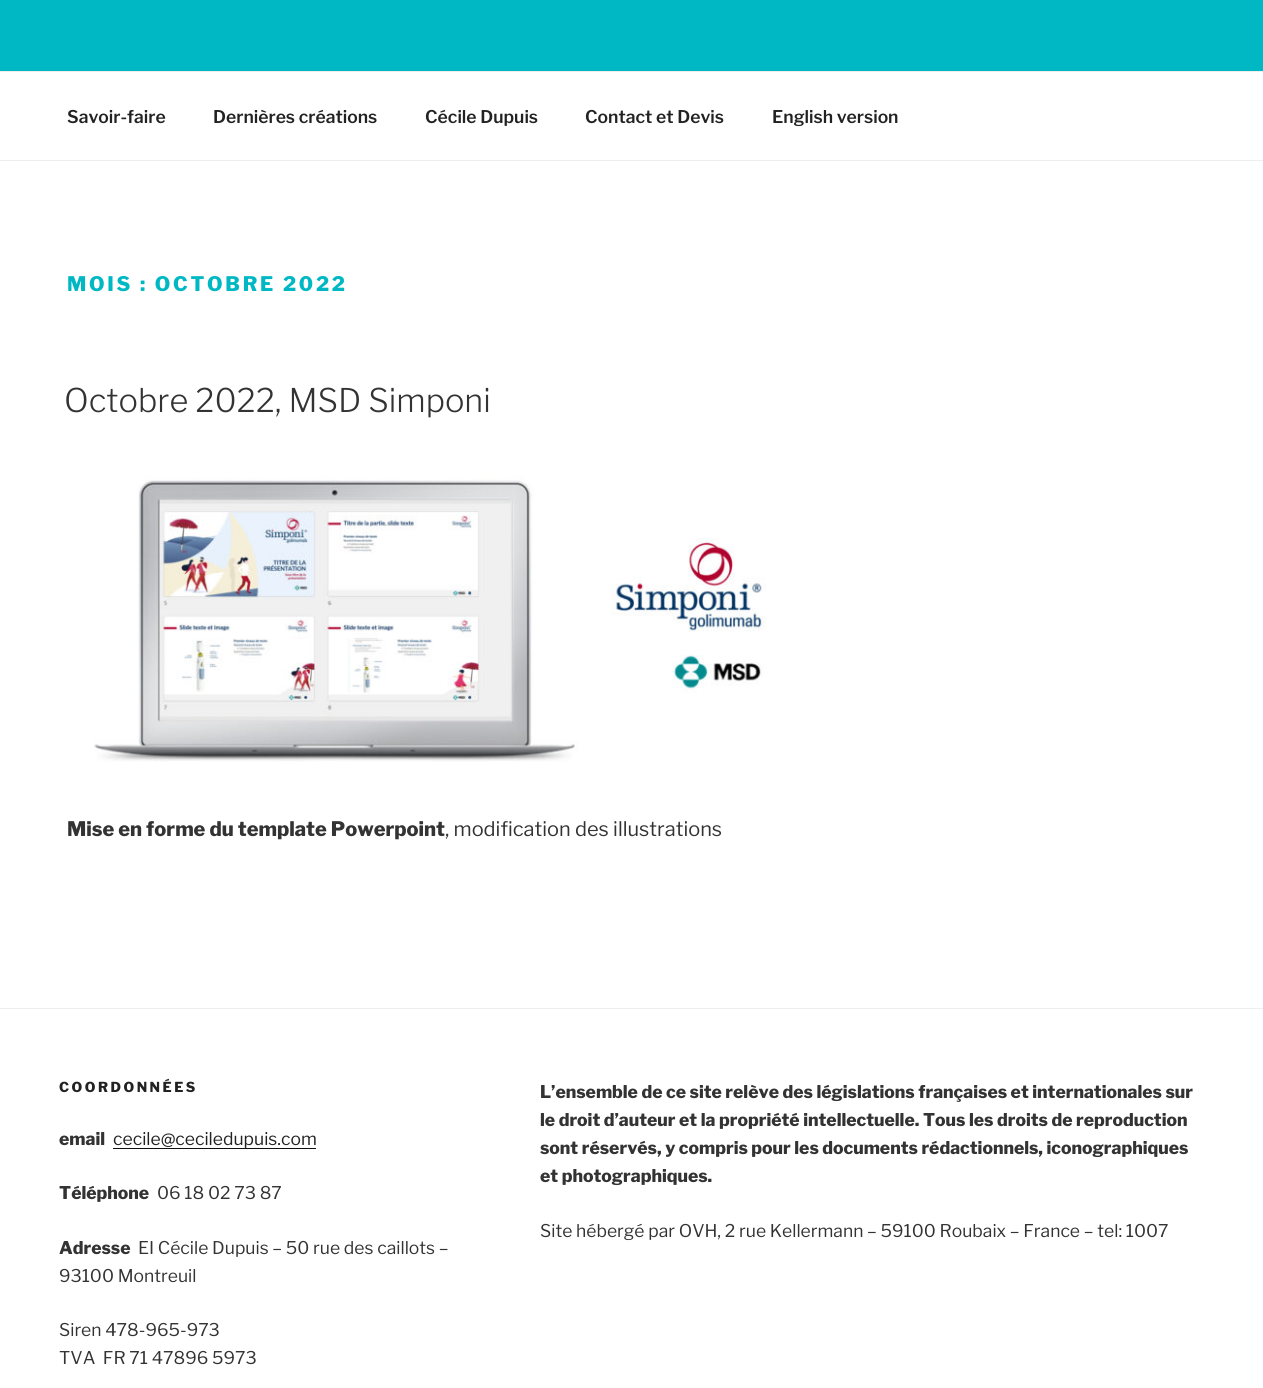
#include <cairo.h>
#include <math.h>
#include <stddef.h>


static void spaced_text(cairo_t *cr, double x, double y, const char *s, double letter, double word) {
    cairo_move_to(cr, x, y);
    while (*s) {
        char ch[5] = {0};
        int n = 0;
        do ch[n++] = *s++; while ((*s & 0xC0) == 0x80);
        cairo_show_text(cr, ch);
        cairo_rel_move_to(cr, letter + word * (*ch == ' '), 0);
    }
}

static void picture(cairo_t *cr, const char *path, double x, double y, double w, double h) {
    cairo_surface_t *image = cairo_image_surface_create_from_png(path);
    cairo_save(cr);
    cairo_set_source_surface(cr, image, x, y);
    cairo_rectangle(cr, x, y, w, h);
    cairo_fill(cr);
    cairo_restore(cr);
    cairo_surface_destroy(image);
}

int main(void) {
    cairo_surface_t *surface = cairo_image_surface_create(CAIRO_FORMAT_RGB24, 1263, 1388);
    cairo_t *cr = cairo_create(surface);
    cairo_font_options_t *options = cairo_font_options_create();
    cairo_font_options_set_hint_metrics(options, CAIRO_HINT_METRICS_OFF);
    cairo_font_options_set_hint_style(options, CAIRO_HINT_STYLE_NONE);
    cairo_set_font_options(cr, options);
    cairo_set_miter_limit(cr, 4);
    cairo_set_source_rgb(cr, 0, 0.722, 0.769);
    cairo_paint(cr);
    cairo_set_source_rgb(cr, 1, 1, 1);
    cairo_rectangle(cr, 0, 72, 1263, 88);
    cairo_fill(cr);
    cairo_set_source_rgb(cr, 0.933, 0.933, 0.933);
    cairo_rectangle(cr, 0, 71, 1263, 1);
    cairo_fill(cr);
    cairo_rectangle(cr, 0, 160, 1263, 1);
    cairo_fill(cr);
    cairo_select_font_face(cr, "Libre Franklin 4 Thin", CAIRO_FONT_SLANT_NORMAL, CAIRO_FONT_WEIGHT_NORMAL);
    cairo_set_font_size(cr, 17.5);
    cairo_set_source_rgb(cr, 0.133, 0.133, 0.133);
    cairo_move_to(cr, 67, 123);
    cairo_show_text(cr, "Savoir-faire");
    cairo_move_to(cr, 213, 123);
    cairo_show_text(cr, "Dernières créations");
    cairo_move_to(cr, 425, 123);
    cairo_show_text(cr, "Cécile Dupuis");
    cairo_move_to(cr, 585, 123);
    cairo_show_text(cr, "Contact et Devis");
    cairo_move_to(cr, 772, 123);
    cairo_show_text(cr, "English version");
    cairo_set_source_rgb(cr, 1, 1, 1);
    cairo_rectangle(cr, 0, 161, 1263, 1227);
    cairo_fill(cr);
    cairo_select_font_face(cr, "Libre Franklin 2 Thin", CAIRO_FONT_SLANT_NORMAL, CAIRO_FONT_WEIGHT_NORMAL);
    cairo_set_font_size(cr, 20);
    cairo_set_source_rgb(cr, 0, 0.722, 0.769);
    spaced_text(cr, 67, 291, "MOIS : OCTOBRE 2022", 2.75, 0);
    cairo_select_font_face(cr, "Libre Franklin Thin", CAIRO_FONT_SLANT_NORMAL, CAIRO_FONT_WEIGHT_NORMAL);
    cairo_set_font_size(cr, 32.5);
    cairo_set_source_rgb(cr, 0.2, 0.2, 0.2);
    cairo_move_to(cr, 64, 412);
    cairo_show_text(cr, "Octobre 2022, MSD Simponi");
    picture(cr, "img1.png", 94, 476, 672, 286);
    cairo_select_font_face(cr, "Libre Franklin 2 Thin", CAIRO_FONT_SLANT_NORMAL, CAIRO_FONT_WEIGHT_NORMAL);
    cairo_set_font_size(cr, 20);
    cairo_move_to(cr, 67, 836);
    cairo_show_text(cr, "Mise en forme du template Powerpoint");
    cairo_select_font_face(cr, "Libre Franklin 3 Thin", CAIRO_FONT_SLANT_NORMAL, CAIRO_FONT_WEIGHT_NORMAL);
    cairo_move_to(cr, 445, 836);
    cairo_show_text(cr, ", modification des illustrations");
    cairo_set_source_rgb(cr, 0.933, 0.933, 0.933);
    cairo_rectangle(cr, 0, 1008, 1263, 1);
    cairo_fill(cr);
    cairo_select_font_face(cr, "Libre Franklin 2 Thin", CAIRO_FONT_SLANT_NORMAL, CAIRO_FONT_WEIGHT_NORMAL);
    cairo_set_font_size(cr, 13.75);
    cairo_set_source_rgb(cr, 0.133, 0.133, 0.133);
    spaced_text(cr, 59, 1092, "COORDONNÉES", 2.5, 0);
    cairo_set_font_size(cr, 17.5);
    cairo_set_source_rgb(cr, 0.2, 0.2, 0.2);
    cairo_move_to(cr, 59, 1145);
    cairo_show_text(cr, "email");
    cairo_select_font_face(cr, "Libre Franklin 3 Thin", CAIRO_FONT_SLANT_NORMAL, CAIRO_FONT_WEIGHT_NORMAL);
    cairo_set_source_rgb(cr, 0.133, 0.133, 0.133);
    cairo_move_to(cr, 113, 1145);
    cairo_show_text(cr, "cecile@ceciledupuis.com");
    cairo_set_source_rgb(cr, 0.059, 0.059, 0.059);
    cairo_rectangle(cr, 113, 1148, 203, 1);
    cairo_fill(cr);
    cairo_select_font_face(cr, "Libre Franklin 2 Thin", CAIRO_FONT_SLANT_NORMAL, CAIRO_FONT_WEIGHT_NORMAL);
    cairo_set_source_rgb(cr, 0.2, 0.2, 0.2);
    cairo_move_to(cr, 59, 1199);
    cairo_show_text(cr, "Téléphone");
    cairo_select_font_face(cr, "Libre Franklin 3 Thin", CAIRO_FONT_SLANT_NORMAL, CAIRO_FONT_WEIGHT_NORMAL);
    cairo_move_to(cr, 157, 1199);
    cairo_show_text(cr, "06 18 02 73 87");
    cairo_select_font_face(cr, "Libre Franklin 2 Thin", CAIRO_FONT_SLANT_NORMAL, CAIRO_FONT_WEIGHT_NORMAL);
    cairo_move_to(cr, 59, 1254);
    cairo_show_text(cr, "Adresse");
    cairo_select_font_face(cr, "Libre Franklin 3 Thin", CAIRO_FONT_SLANT_NORMAL, CAIRO_FONT_WEIGHT_NORMAL);
    cairo_move_to(cr, 138, 1254);
    cairo_show_text(cr, "EI Cécile Dupuis – 50 rue des caillots –");
    cairo_move_to(cr, 59, 1282);
    cairo_show_text(cr, "93100 Montreuil");
    cairo_move_to(cr, 59, 1336);
    cairo_show_text(cr, "Siren 478-965-973");
    cairo_move_to(cr, 59, 1364);
    cairo_show_text(cr, "TVA  FR 71 47896 5973");
    cairo_select_font_face(cr, "Libre Franklin 2 Thin", CAIRO_FONT_SLANT_NORMAL, CAIRO_FONT_WEIGHT_NORMAL);
    cairo_move_to(cr, 540, 1098);
    cairo_show_text(cr, "L’ensemble de ce site relève des législations françaises et internationales sur");
    cairo_move_to(cr, 540, 1126);
    cairo_show_text(cr, "le droit d’auteur et la propriété intellectuelle. Tous les droits de reproduction");
    cairo_move_to(cr, 540, 1154);
    cairo_show_text(cr, "sont réservés, y compris pour les documents rédactionnels, iconographiques");
    cairo_move_to(cr, 540, 1182);
    cairo_show_text(cr, "et photographiques.");
    cairo_select_font_face(cr, "Libre Franklin 3 Thin", CAIRO_FONT_SLANT_NORMAL, CAIRO_FONT_WEIGHT_NORMAL);
    cairo_move_to(cr, 540, 1237);
    cairo_show_text(cr, "Site hébergé par OVH, 2 rue Kellermann – 59100 Roubaix – France – tel: 1007");
    cairo_surface_write_to_png(surface, "page.png");
    cairo_font_options_destroy(options);
    cairo_destroy(cr);
    cairo_surface_destroy(surface);
    return 0;
}
